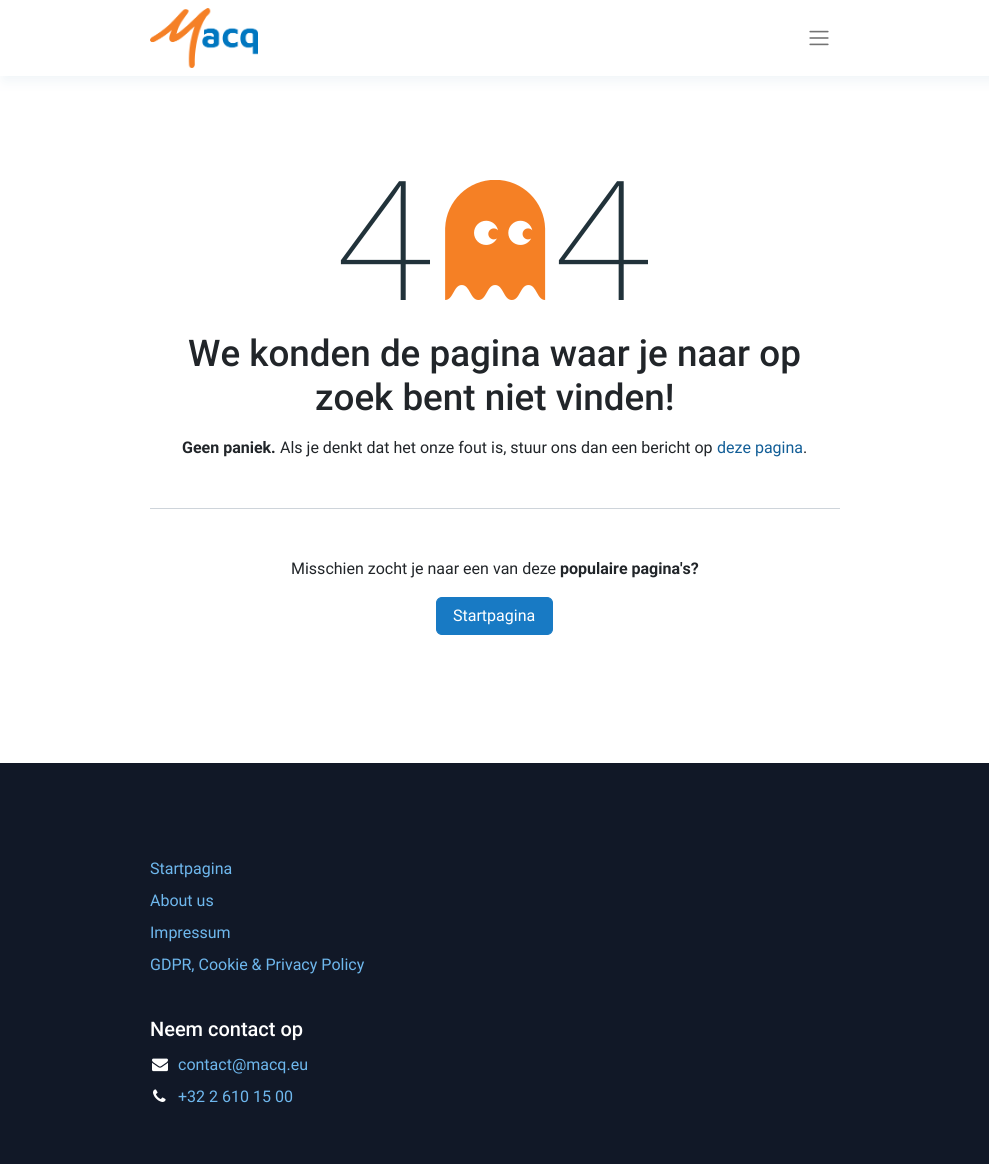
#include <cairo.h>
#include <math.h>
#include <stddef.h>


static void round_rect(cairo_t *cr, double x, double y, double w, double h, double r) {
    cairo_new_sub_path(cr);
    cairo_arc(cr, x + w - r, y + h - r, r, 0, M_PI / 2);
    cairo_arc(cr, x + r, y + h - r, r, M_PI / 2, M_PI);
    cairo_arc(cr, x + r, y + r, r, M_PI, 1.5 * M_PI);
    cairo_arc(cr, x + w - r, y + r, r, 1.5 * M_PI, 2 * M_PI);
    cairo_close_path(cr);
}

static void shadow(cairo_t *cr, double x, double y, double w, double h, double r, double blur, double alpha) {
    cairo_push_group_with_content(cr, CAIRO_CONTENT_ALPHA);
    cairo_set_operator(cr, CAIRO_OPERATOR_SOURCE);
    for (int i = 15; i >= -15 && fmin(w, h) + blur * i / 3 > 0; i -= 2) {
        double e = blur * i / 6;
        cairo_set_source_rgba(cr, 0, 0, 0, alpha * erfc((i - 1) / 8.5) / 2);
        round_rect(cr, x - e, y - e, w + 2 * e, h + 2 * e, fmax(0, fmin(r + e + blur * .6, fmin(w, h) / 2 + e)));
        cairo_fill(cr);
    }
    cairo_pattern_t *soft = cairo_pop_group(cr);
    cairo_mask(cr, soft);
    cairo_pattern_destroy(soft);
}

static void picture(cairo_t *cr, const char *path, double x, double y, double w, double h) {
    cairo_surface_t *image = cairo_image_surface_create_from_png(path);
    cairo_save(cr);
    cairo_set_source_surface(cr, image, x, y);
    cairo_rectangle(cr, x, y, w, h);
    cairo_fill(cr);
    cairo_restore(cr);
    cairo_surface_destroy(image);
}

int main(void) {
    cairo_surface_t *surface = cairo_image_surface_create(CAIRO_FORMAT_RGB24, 989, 1164);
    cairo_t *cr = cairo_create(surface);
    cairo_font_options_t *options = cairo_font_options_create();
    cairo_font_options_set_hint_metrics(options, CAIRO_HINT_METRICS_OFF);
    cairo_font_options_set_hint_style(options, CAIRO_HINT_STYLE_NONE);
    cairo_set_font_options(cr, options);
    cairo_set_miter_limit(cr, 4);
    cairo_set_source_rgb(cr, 1, 1, 1);
    cairo_paint(cr);
    cairo_save(cr);
    cairo_rectangle(cr, 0, 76, 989, 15);
    cairo_clip(cr);
    cairo_set_source_rgb(cr, 0.808, 0.871, 0.906);
    shadow(cr, 4, 4, 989, 76, 0, 7, 0.34);
    cairo_restore(cr);
    picture(cr, "img1.png", 150, 8, 108, 60);
    picture(cr, "img2.png", 809, 30, 20, 16);
    picture(cr, "img3.png", 340, 180, 308, 120);
    cairo_select_font_face(cr, "Roboto Medium", CAIRO_FONT_SLANT_NORMAL, CAIRO_FONT_WEIGHT_NORMAL);
    cairo_set_font_size(cr, 36.8);
    cairo_set_source_rgb(cr, 0.129, 0.145, 0.161);
    cairo_move_to(cr, 188, 366);
    cairo_show_text(cr, "We konden de pagina waar je naar op");
    cairo_move_to(cr, 315, 410);
    cairo_show_text(cr, "zoek bent niet vinden!");
    cairo_select_font_face(cr, "Roboto", CAIRO_FONT_SLANT_NORMAL, CAIRO_FONT_WEIGHT_BOLD);
    cairo_set_font_size(cr, 16);
    cairo_move_to(cr, 182, 453);
    cairo_show_text(cr, "Geen paniek.");
    cairo_select_font_face(cr, "Roboto", CAIRO_FONT_SLANT_NORMAL, CAIRO_FONT_WEIGHT_NORMAL);
    cairo_move_to(cr, 280, 453);
    cairo_show_text(cr, "Als je denkt dat het onze fout is, stuur ons dan een bericht op");
    cairo_set_source_rgb(cr, 0.071, 0.369, 0.592);
    cairo_move_to(cr, 717, 453);
    cairo_show_text(cr, "deze pagina");
    cairo_set_source_rgb(cr, 0.129, 0.145, 0.161);
    cairo_move_to(cr, 803, 453);
    cairo_show_text(cr, ".");
    cairo_set_source_rgb(cr, 0.808, 0.831, 0.855);
    cairo_rectangle(cr, 150, 508, 690, 1);
    cairo_fill(cr);
    cairo_set_source_rgb(cr, 0.129, 0.145, 0.161);
    cairo_move_to(cr, 291, 574);
    cairo_show_text(cr, "Misschien zocht je naar een van deze");
    cairo_select_font_face(cr, "Roboto", CAIRO_FONT_SLANT_NORMAL, CAIRO_FONT_WEIGHT_BOLD);
    cairo_move_to(cr, 560, 574);
    cairo_show_text(cr, "populaire pagina's?");
    cairo_set_source_rgb(cr, 0.094, 0.478, 0.769);
    round_rect(cr, 436.5, 597.5, 116, 37, 5.5);
    cairo_fill_preserve(cr);
    cairo_set_line_width(cr, 1);
    cairo_stroke(cr);
    cairo_select_font_face(cr, "Roboto", CAIRO_FONT_SLANT_NORMAL, CAIRO_FONT_WEIGHT_NORMAL);
    cairo_set_source_rgb(cr, 1, 1, 1);
    cairo_move_to(cr, 453, 621);
    cairo_show_text(cr, "Startpagina");
    cairo_set_source_rgb(cr, 0.067, 0.094, 0.153);
    cairo_rectangle(cr, 0, 763, 989, 401);
    cairo_fill(cr);
    cairo_set_source_rgb(cr, 0.431, 0.718, 0.929);
    cairo_move_to(cr, 150, 874);
    cairo_show_text(cr, "Startpagina");
    cairo_move_to(cr, 150, 906);
    cairo_show_text(cr, "About us");
    cairo_move_to(cr, 150, 938);
    cairo_show_text(cr, "Impressum");
    cairo_move_to(cr, 150, 970);
    cairo_show_text(cr, "GDPR, Cookie & Privacy Policy");
    cairo_select_font_face(cr, "Roboto Medium", CAIRO_FONT_SLANT_NORMAL, CAIRO_FONT_WEIGHT_NORMAL);
    cairo_set_font_size(cr, 20);
    cairo_set_source_rgb(cr, 1, 1, 1);
    cairo_move_to(cr, 150, 1036);
    cairo_show_text(cr, "Neem contact op");
    picture(cr, "img4.png", 152, 1058, 16, 14);
    cairo_select_font_face(cr, "Roboto", CAIRO_FONT_SLANT_NORMAL, CAIRO_FONT_WEIGHT_NORMAL);
    cairo_set_font_size(cr, 16);
    cairo_set_source_rgb(cr, 0.431, 0.718, 0.929);
    cairo_move_to(cr, 178, 1070);
    cairo_show_text(cr, "contact@macq.eu");
    picture(cr, "img5.png", 153, 1089, 13, 13);
    cairo_move_to(cr, 178, 1102);
    cairo_show_text(cr, "+32 2 610 15 00");
    cairo_surface_write_to_png(surface, "page.png");
    cairo_font_options_destroy(options);
    cairo_destroy(cr);
    cairo_surface_destroy(surface);
    return 0;
}
